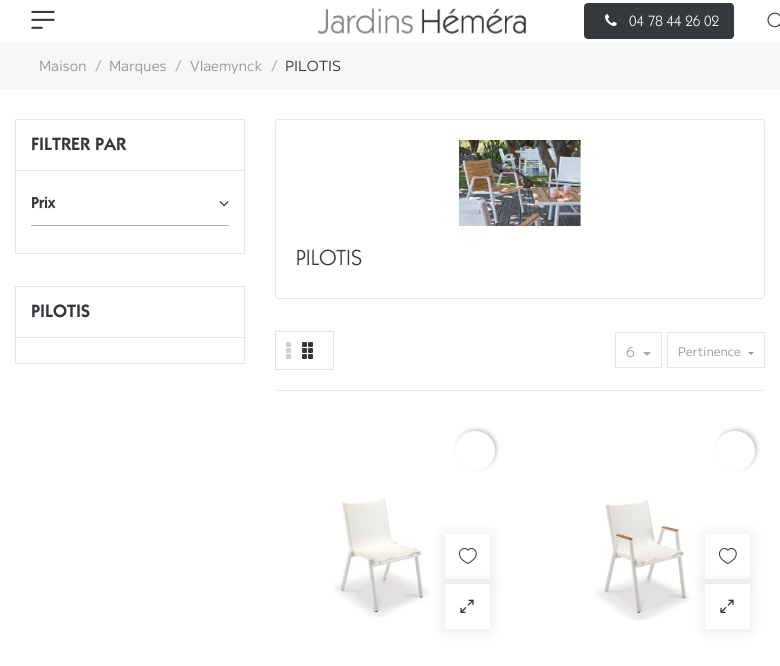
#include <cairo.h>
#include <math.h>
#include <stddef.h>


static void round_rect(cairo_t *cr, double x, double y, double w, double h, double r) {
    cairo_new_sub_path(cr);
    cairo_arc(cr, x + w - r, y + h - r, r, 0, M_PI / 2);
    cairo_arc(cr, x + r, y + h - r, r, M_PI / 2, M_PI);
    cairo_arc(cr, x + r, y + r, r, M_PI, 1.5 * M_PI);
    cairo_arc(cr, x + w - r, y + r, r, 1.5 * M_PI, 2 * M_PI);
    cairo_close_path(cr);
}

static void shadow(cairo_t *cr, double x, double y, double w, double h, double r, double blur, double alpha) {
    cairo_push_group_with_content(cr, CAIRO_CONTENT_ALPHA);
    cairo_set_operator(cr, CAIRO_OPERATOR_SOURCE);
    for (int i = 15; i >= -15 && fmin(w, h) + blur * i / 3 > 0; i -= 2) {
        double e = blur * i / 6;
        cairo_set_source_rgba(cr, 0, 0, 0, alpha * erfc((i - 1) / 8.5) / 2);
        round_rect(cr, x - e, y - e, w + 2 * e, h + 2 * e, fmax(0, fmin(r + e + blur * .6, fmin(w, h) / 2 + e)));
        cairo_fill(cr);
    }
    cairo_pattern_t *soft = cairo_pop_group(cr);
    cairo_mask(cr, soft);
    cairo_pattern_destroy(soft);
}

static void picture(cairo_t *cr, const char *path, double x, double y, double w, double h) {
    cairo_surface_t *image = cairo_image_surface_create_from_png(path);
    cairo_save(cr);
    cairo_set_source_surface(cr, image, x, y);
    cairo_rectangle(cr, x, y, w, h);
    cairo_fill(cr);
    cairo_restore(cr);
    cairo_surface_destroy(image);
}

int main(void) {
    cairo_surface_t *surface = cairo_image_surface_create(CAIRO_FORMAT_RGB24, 780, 666);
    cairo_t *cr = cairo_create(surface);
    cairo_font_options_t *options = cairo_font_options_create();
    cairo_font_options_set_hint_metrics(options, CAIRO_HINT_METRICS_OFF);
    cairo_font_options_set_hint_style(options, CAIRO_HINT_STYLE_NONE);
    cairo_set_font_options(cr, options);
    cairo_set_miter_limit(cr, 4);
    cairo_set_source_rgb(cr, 1, 1, 1);
    cairo_paint(cr);
    picture(cr, "img1.png", 31, 10, 24, 19);
    picture(cr, "img2.png", 318, 8, 209, 26);
    cairo_set_source_rgb(cr, 0.208, 0.224, 0.231);
    round_rect(cr, 584, 3, 150, 36, 4);
    cairo_fill(cr);
    picture(cr, "img3.png", 605, 14, 12, 12);
    cairo_select_font_face(cr, "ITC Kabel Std", CAIRO_FONT_SLANT_NORMAL, CAIRO_FONT_WEIGHT_NORMAL);
    cairo_set_font_size(cr, 15);
    cairo_set_source_rgb(cr, 1, 1, 1);
    cairo_move_to(cr, 629, 26);
    cairo_show_text(cr, "04 78 44 26 02");
    picture(cr, "img4.png", 767, 12, 13, 16);
    cairo_set_source_rgb(cr, 0.965, 0.965, 0.965);
    cairo_rectangle(cr, 0, 42, 780, 47);
    cairo_fill(cr);
    cairo_select_font_face(cr, "M PLUS 1", CAIRO_FONT_SLANT_NORMAL, CAIRO_FONT_WEIGHT_NORMAL);
    cairo_set_font_size(cr, 14);
    cairo_set_source_rgb(cr, 0.6, 0.6, 0.6);
    cairo_move_to(cr, 39, 71);
    cairo_show_text(cr, "Maison");
    cairo_set_source_rgb(cr, 0.659, 0.667, 0.671);
    cairo_move_to(cr, 95, 71);
    cairo_show_text(cr, "/");
    cairo_set_source_rgb(cr, 0.6, 0.6, 0.6);
    cairo_move_to(cr, 109, 71);
    cairo_show_text(cr, "Marques");
    cairo_set_source_rgb(cr, 0.659, 0.667, 0.671);
    cairo_move_to(cr, 175, 71);
    cairo_show_text(cr, "/");
    cairo_set_source_rgb(cr, 0.6, 0.6, 0.6);
    cairo_move_to(cr, 190, 71);
    cairo_show_text(cr, "Vlaemynck");
    cairo_set_source_rgb(cr, 0.659, 0.667, 0.671);
    cairo_move_to(cr, 271, 71);
    cairo_show_text(cr, "/");
    cairo_set_source_rgb(cr, 0.204, 0.22, 0.231);
    cairo_move_to(cr, 285, 71);
    cairo_show_text(cr, "PILOTIS");
    cairo_rectangle(cr, 15.5, 119.5, 229, 134);
    cairo_set_source_rgb(cr, 0.902, 0.902, 0.902);
    cairo_set_line_width(cr, 1);
    cairo_stroke(cr);
    cairo_rectangle(cr, 16, 170, 228, 1);
    cairo_fill(cr);
    cairo_select_font_face(cr, "ITC Kabel Std SemiBold", CAIRO_FONT_SLANT_NORMAL, CAIRO_FONT_WEIGHT_NORMAL);
    cairo_set_font_size(cr, 18);
    cairo_set_source_rgb(cr, 0.204, 0.22, 0.231);
    cairo_move_to(cr, 31, 150);
    cairo_show_text(cr, "FILTRER PAR");
    cairo_set_source_rgb(cr, 0.678, 0.71, 0.741);
    cairo_rectangle(cr, 31, 225, 198, 1);
    cairo_fill(cr);
    cairo_set_font_size(cr, 16);
    cairo_set_source_rgb(cr, 0.204, 0.22, 0.231);
    cairo_move_to(cr, 31, 208);
    cairo_show_text(cr, "Prix");
    picture(cr, "img5.png", 219, 201, 10, 6);
    cairo_rectangle(cr, 15.5, 286.5, 229, 77);
    cairo_set_source_rgb(cr, 0.902, 0.902, 0.902);
    cairo_stroke(cr);
    cairo_rectangle(cr, 16, 337, 228, 1);
    cairo_fill(cr);
    cairo_set_font_size(cr, 18);
    cairo_set_source_rgb(cr, 0.204, 0.22, 0.231);
    cairo_move_to(cr, 31, 317);
    cairo_show_text(cr, "PILOTIS");
    round_rect(cr, 275.5, 119.5, 489, 179, 3.5);
    cairo_set_source_rgb(cr, 0.906, 0.906, 0.906);
    cairo_stroke(cr);
    picture(cr, "img6.png", 458, 140, 123, 86);
    cairo_select_font_face(cr, "ITC Kabel Std", CAIRO_FONT_SLANT_NORMAL, CAIRO_FONT_WEIGHT_NORMAL);
    cairo_set_font_size(cr, 22);
    cairo_set_source_rgb(cr, 0.204, 0.22, 0.231);
    cairo_move_to(cr, 296, 265);
    cairo_show_text(cr, "PILOTIS");
    cairo_set_source_rgb(cr, 0.902, 0.902, 0.902);
    cairo_rectangle(cr, 275, 390, 490, 1);
    cairo_fill(cr);
    cairo_rectangle(cr, 275.5, 331.5, 58, 38);
    cairo_set_source_rgb(cr, 0.882, 0.882, 0.882);
    cairo_stroke(cr);
    cairo_set_source_rgb(cr, 0.808, 0.808, 0.808);
    round_rect(cr, 286, 342, 5, 5, 1);
    cairo_fill(cr);
    round_rect(cr, 286, 348, 5, 5, 1);
    cairo_fill(cr);
    round_rect(cr, 286, 354, 5, 5, 1);
    cairo_fill(cr);
    cairo_set_source_rgb(cr, 0.204, 0.22, 0.231);
    round_rect(cr, 302, 342, 5, 5, 1);
    cairo_fill(cr);
    round_rect(cr, 308, 342, 5, 5, 1);
    cairo_fill(cr);
    round_rect(cr, 302, 348, 5, 5, 1);
    cairo_fill(cr);
    round_rect(cr, 308, 348, 5, 5, 1);
    cairo_fill(cr);
    round_rect(cr, 302, 354, 5, 5, 1);
    cairo_fill(cr);
    round_rect(cr, 308, 354, 5, 5, 1);
    cairo_fill(cr);
    cairo_rectangle(cr, 615.5, 332.5, 46, 35);
    cairo_set_source_rgb(cr, 0.902, 0.902, 0.902);
    cairo_stroke(cr);
    cairo_select_font_face(cr, "M PLUS 1", CAIRO_FONT_SLANT_NORMAL, CAIRO_FONT_WEIGHT_NORMAL);
    cairo_set_font_size(cr, 14);
    cairo_set_source_rgb(cr, 0.659, 0.667, 0.671);
    cairo_move_to(cr, 626, 357);
    cairo_show_text(cr, "6");
    cairo_set_source_rgb(cr, 0.675, 0.667, 0.651);
    cairo_new_path(cr);
    cairo_move_to(cr, 643, 352);
    cairo_line_to(cr, 651, 352);
    cairo_line_to(cr, 647, 356);
    cairo_close_path(cr);
    cairo_fill(cr);
    cairo_rectangle(cr, 667.5, 332.5, 97, 35);
    cairo_set_source_rgb(cr, 0.902, 0.902, 0.902);
    cairo_stroke(cr);
    cairo_set_font_size(cr, 12);
    cairo_set_source_rgb(cr, 0.6, 0.6, 0.6);
    cairo_move_to(cr, 678, 356);
    cairo_show_text(cr, "Pertinence");
    cairo_new_path(cr);
    cairo_move_to(cr, 748, 352);
    cairo_line_to(cr, 754, 352);
    cairo_line_to(cr, 751, 355);
    cairo_close_path(cr);
    cairo_fill(cr);
    cairo_set_source_rgb(cr, 0, 0, 0);
    shadow(cr, 457, 429, 40, 40, 20, 2, 0.2);
    cairo_set_source_rgb(cr, 1, 1, 1);
    cairo_arc(cr, 475, 451, 20, 0, 2 * M_PI);
    cairo_fill(cr);
    picture(cr, "img7.png", 333, 498, 98, 119);
    cairo_save(cr);
    cairo_set_fill_rule(cr, CAIRO_FILL_RULE_EVEN_ODD);
    cairo_new_path(cr);
    cairo_move_to(cr, 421, 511);
    cairo_line_to(cr, 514, 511);
    cairo_line_to(cr, 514, 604);
    cairo_line_to(cr, 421, 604);
    cairo_close_path(cr);
    cairo_move_to(cr, 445, 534);
    cairo_line_to(cr, 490, 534);
    cairo_line_to(cr, 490, 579);
    cairo_line_to(cr, 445, 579);
    cairo_close_path(cr);
    cairo_clip(cr);
    cairo_set_source_rgb(cr, 0, 0, 0);
    shadow(cr, 445, 535, 45, 45, 0, 7.5, 0.1);
    cairo_restore(cr);
    picture(cr, "img8.png", 459, 548, 18, 16);
    cairo_set_source_rgb(cr, 0, 0, 0);
    shadow(cr, 445, 585, 45, 45, 0, 7.5, 0.1);
    cairo_set_source_rgb(cr, 1, 1, 1);
    cairo_rectangle(cr, 445, 584, 45, 45);
    cairo_fill(cr);
    picture(cr, "img9.png", 460, 599, 14, 14);
    cairo_set_source_rgb(cr, 0, 0, 0);
    shadow(cr, 717, 429, 40, 40, 20, 2, 0.2);
    cairo_set_source_rgb(cr, 1, 1, 1);
    cairo_arc(cr, 735, 451, 20, 0, 2 * M_PI);
    cairo_fill(cr);
    picture(cr, "img10.png", 594, 500, 98, 120);
    cairo_save(cr);
    cairo_set_fill_rule(cr, CAIRO_FILL_RULE_EVEN_ODD);
    cairo_new_path(cr);
    cairo_move_to(cr, 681, 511);
    cairo_line_to(cr, 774, 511);
    cairo_line_to(cr, 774, 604);
    cairo_line_to(cr, 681, 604);
    cairo_close_path(cr);
    cairo_move_to(cr, 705, 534);
    cairo_line_to(cr, 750, 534);
    cairo_line_to(cr, 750, 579);
    cairo_line_to(cr, 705, 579);
    cairo_close_path(cr);
    cairo_clip(cr);
    cairo_set_source_rgb(cr, 0, 0, 0);
    shadow(cr, 705, 535, 45, 45, 0, 7.5, 0.1);
    cairo_restore(cr);
    picture(cr, "img8.png", 719, 548, 18, 16);
    cairo_set_source_rgb(cr, 0, 0, 0);
    shadow(cr, 705, 585, 45, 45, 0, 7.5, 0.1);
    cairo_set_source_rgb(cr, 1, 1, 1);
    cairo_rectangle(cr, 705, 584, 45, 45);
    cairo_fill(cr);
    picture(cr, "img9.png", 720, 599, 14, 14);
    cairo_surface_write_to_png(surface, "page.png");
    cairo_font_options_destroy(options);
    cairo_destroy(cr);
    cairo_surface_destroy(surface);
    return 0;
}
